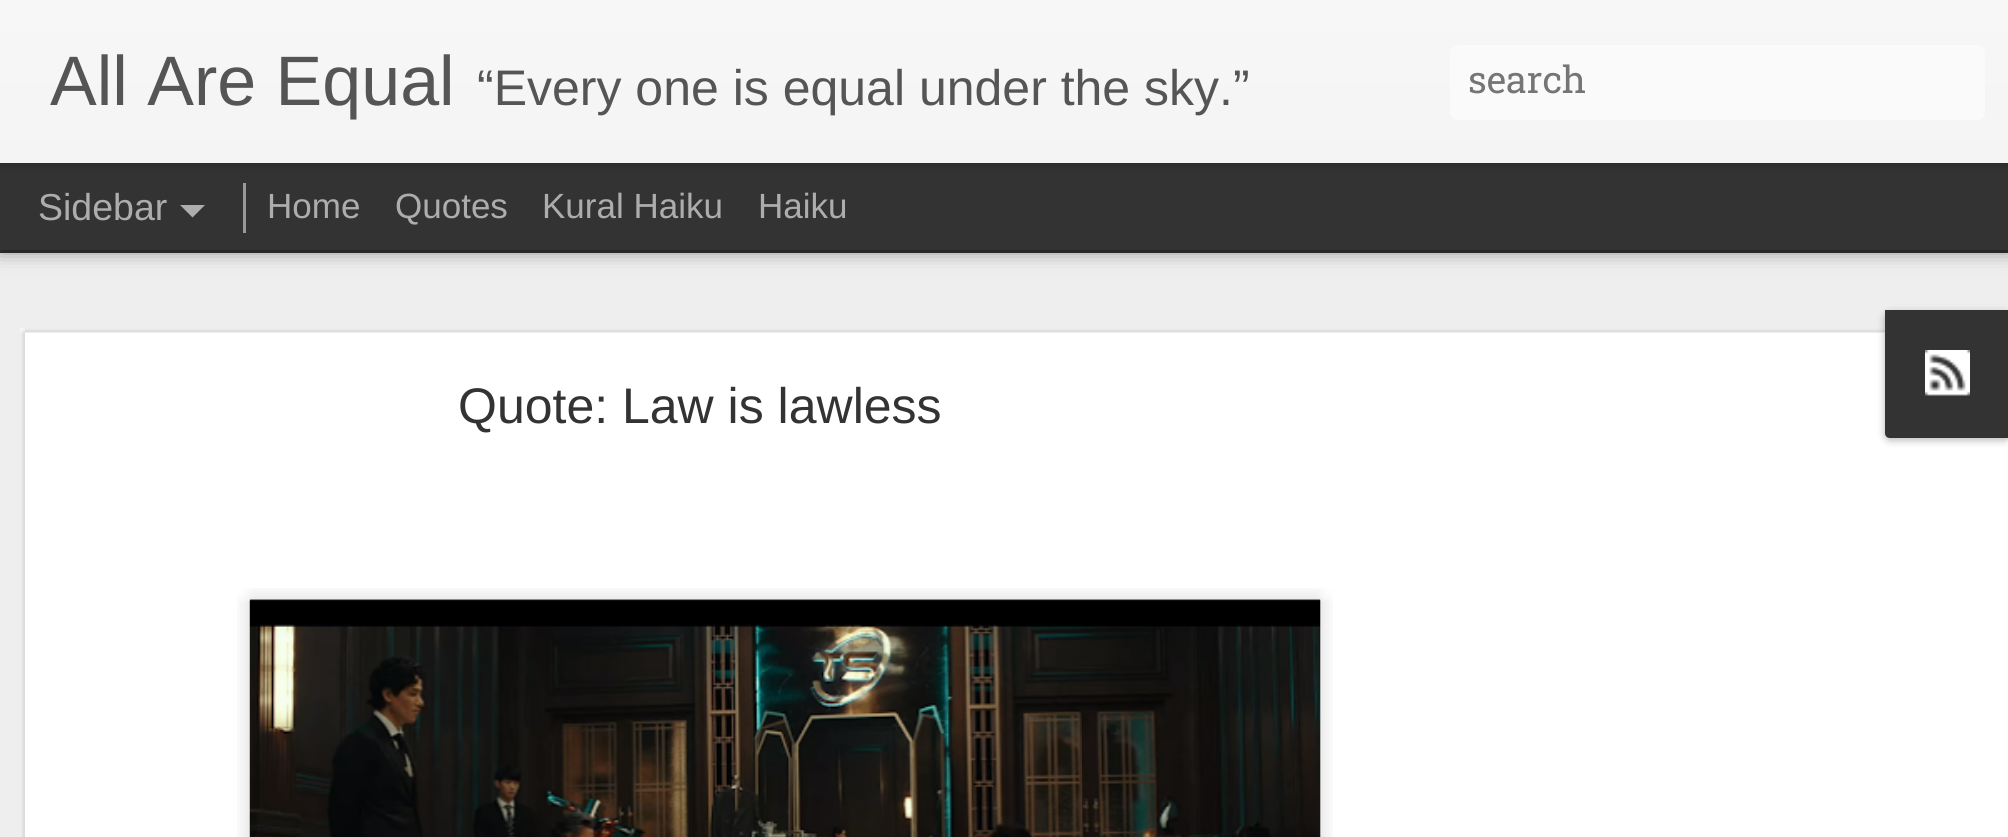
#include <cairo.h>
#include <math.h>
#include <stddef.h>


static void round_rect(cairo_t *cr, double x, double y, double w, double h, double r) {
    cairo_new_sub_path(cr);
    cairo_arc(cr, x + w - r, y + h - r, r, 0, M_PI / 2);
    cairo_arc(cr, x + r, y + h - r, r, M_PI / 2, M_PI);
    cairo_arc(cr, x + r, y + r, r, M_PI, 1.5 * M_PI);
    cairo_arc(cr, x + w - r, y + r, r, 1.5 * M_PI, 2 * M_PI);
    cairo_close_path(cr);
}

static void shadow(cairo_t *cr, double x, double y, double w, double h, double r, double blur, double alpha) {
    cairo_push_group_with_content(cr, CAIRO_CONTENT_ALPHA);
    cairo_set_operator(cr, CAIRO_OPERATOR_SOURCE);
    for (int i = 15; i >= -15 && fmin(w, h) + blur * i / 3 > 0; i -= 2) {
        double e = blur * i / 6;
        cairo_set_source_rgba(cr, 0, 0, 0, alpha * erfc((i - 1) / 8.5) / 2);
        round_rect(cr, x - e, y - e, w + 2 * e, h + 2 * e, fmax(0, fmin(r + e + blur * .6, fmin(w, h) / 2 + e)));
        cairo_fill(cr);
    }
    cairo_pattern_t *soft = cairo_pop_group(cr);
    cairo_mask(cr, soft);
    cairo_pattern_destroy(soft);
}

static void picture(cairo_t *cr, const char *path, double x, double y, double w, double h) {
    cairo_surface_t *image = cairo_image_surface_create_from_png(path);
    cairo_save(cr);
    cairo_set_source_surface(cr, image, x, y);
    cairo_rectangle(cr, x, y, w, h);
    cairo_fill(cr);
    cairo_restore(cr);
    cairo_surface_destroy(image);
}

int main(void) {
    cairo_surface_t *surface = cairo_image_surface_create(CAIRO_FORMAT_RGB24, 2008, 837);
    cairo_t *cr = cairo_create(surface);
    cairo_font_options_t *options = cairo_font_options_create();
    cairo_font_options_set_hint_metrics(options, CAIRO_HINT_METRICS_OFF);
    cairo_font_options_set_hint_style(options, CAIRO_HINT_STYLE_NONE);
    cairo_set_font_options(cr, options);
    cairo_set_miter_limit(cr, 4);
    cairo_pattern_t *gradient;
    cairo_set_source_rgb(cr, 0.2, 0.2, 0.2);
    cairo_paint(cr);
    cairo_set_source_rgb(cr, 0.933, 0.933, 0.933);
    cairo_rectangle(cr, 0, 253, 2008, 584);
    cairo_fill(cr);
    cairo_set_source_rgb(cr, 0, 0, 0);
    shadow(cr, 0, 163, 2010, 87, 0, 10, 0.5);
    cairo_set_source_rgb(cr, 0.2, 0.2, 0.2);
    cairo_rectangle(cr, 0, 163, 2008, 87);
    cairo_fill(cr);
    cairo_set_source_rgb(cr, 0, 0, 0);
    shadow(cr, 0, 0, 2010, 163, 0, 6, 0.3);
    gradient = cairo_pattern_create_linear(0, 0, 0, 163);
    cairo_pattern_add_color_stop_rgba(gradient, 0, 0.969, 0.969, 0.969, 1);
    cairo_pattern_add_color_stop_rgba(gradient, 1, 0.957, 0.957, 0.957, 1);
    cairo_set_source(cr, gradient);
    cairo_pattern_destroy(gradient);
    cairo_rectangle(cr, 0, 0, 2008, 163);
    cairo_fill(cr);
    cairo_select_font_face(cr, "Liberation Sans", CAIRO_FONT_SLANT_NORMAL, CAIRO_FONT_WEIGHT_NORMAL);
    cairo_set_font_size(cr, 70);
    cairo_set_source_rgb(cr, 0.333, 0.333, 0.333);
    cairo_move_to(cr, 50, 105);
    cairo_show_text(cr, "All Are Equal");
    cairo_set_font_size(cr, 50);
    cairo_move_to(cr, 477, 105);
    cairo_show_text(cr, "“Every one is equal under the sky.”");
    cairo_set_source_rgb(cr, 0.98, 0.98, 0.98);
    round_rect(cr, 1450, 45, 535, 75, 8);
    cairo_fill(cr);
    cairo_select_font_face(cr, "Hanuman", CAIRO_FONT_SLANT_NORMAL, CAIRO_FONT_WEIGHT_NORMAL);
    cairo_set_font_size(cr, 37.5);
    cairo_set_source_rgb(cr, 0.459, 0.459, 0.459);
    cairo_move_to(cr, 1468, 93);
    cairo_show_text(cr, "search");
    cairo_select_font_face(cr, "Liberation Sans", CAIRO_FONT_SLANT_NORMAL, CAIRO_FONT_WEIGHT_NORMAL);
    cairo_set_source_rgb(cr, 0.678, 0.678, 0.678);
    cairo_move_to(cr, 38, 220);
    cairo_show_text(cr, "Sidebar");
    cairo_new_path(cr);
    cairo_move_to(cr, 180, 205);
    cairo_line_to(cr, 205, 205);
    cairo_line_to(cr, 192.5, 217.5);
    cairo_close_path(cr);
    cairo_fill(cr);
    cairo_set_source_rgb(cr, 0.6, 0.6, 0.6);
    cairo_rectangle(cr, 243, 183, 3, 50);
    cairo_fill(cr);
    cairo_set_font_size(cr, 35);
    cairo_set_source_rgb(cr, 0.678, 0.678, 0.678);
    cairo_move_to(cr, 267, 218);
    cairo_show_text(cr, "Home");
    cairo_move_to(cr, 395, 218);
    cairo_show_text(cr, "Quotes");
    cairo_move_to(cr, 542, 218);
    cairo_show_text(cr, "Kural Haiku");
    cairo_move_to(cr, 758, 218);
    cairo_show_text(cr, "Haiku");
    cairo_set_source_rgb(cr, 1, 1, 1);
    cairo_rectangle(cr, 20, 328, 1988, 509);
    cairo_fill(cr);
    picture(cr, "img1.png", 20, 328, 1865, 509);
    cairo_set_font_size(cr, 50);
    cairo_set_source_rgb(cr, 0.2, 0.2, 0.2);
    cairo_move_to(cr, 458, 423);
    cairo_show_text(cr, "Quote: Law is lawless");
    picture(cr, "img2.png", 237, 588, 1096, 249);
    picture(cr, "img3.png", 249, 599, 1072, 238);
    cairo_set_source_rgb(cr, 0, 0, 0);
    shadow(cr, 1885, 313, 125, 127, 5, 4, 0.3);
    cairo_set_source_rgb(cr, 0.2, 0.2, 0.2);
    cairo_new_path(cr);
    cairo_move_to(cr, 1885, 310);
    cairo_line_to(cr, 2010, 310);
    cairo_line_to(cr, 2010, 438);
    cairo_line_to(cr, 1890, 438);
    cairo_curve_to(cr, 1887, 438, 1885, 436, 1885, 433);
    cairo_close_path(cr);
    cairo_fill(cr);
    picture(cr, "img4.png", 1925, 350, 45, 46);
    cairo_surface_write_to_png(surface, "page.png");
    cairo_font_options_destroy(options);
    cairo_destroy(cr);
    cairo_surface_destroy(surface);
    return 0;
}
